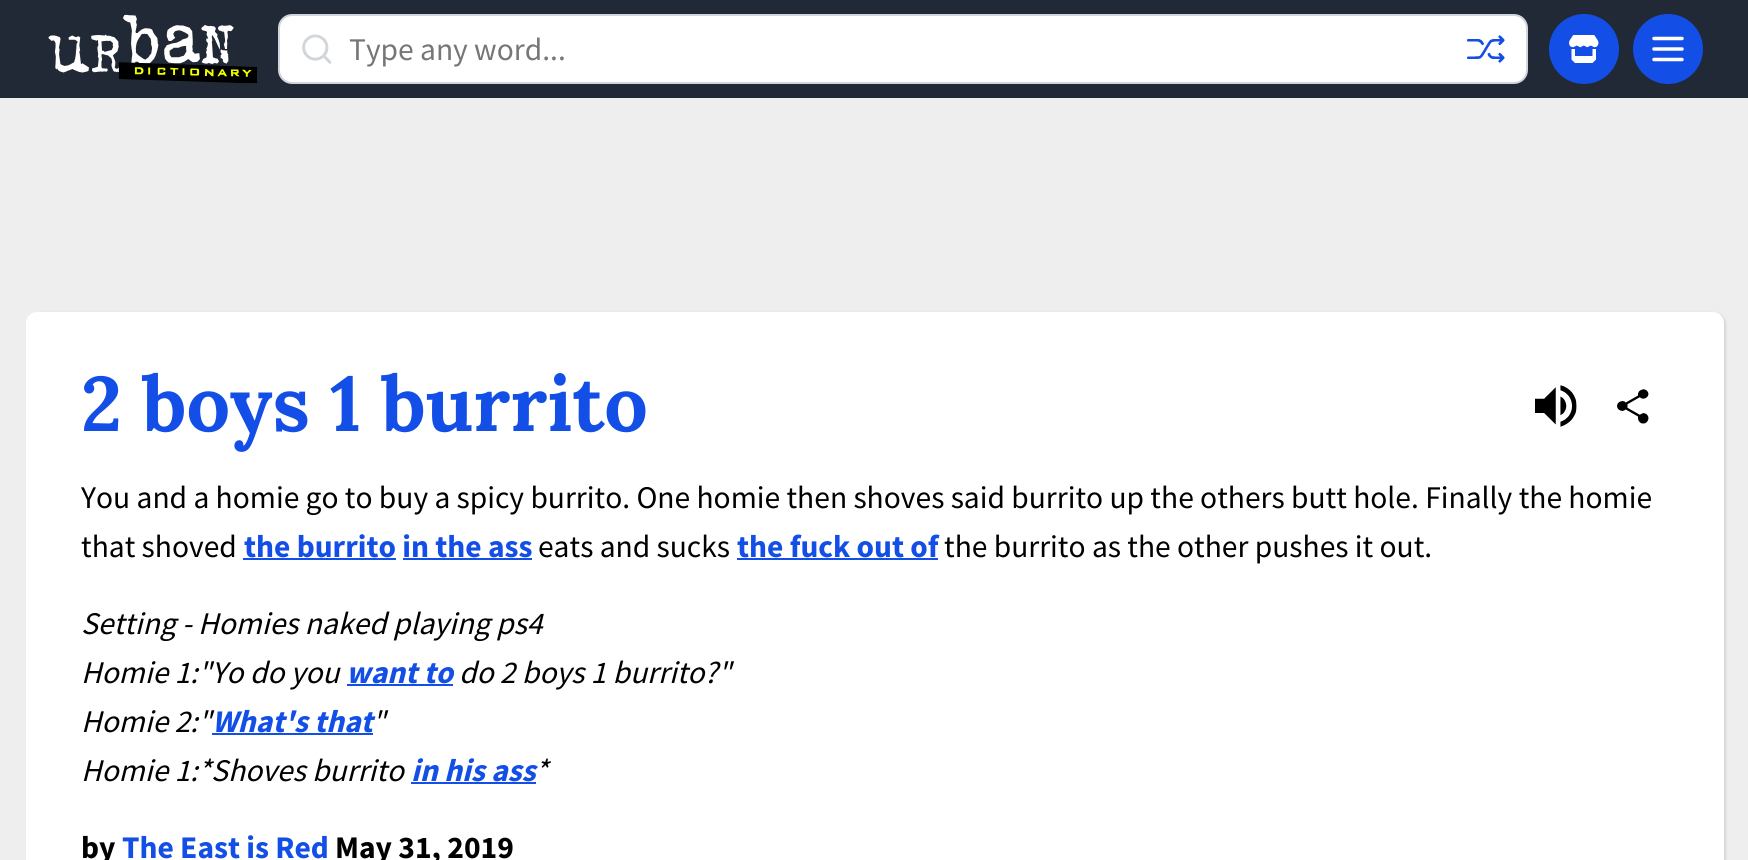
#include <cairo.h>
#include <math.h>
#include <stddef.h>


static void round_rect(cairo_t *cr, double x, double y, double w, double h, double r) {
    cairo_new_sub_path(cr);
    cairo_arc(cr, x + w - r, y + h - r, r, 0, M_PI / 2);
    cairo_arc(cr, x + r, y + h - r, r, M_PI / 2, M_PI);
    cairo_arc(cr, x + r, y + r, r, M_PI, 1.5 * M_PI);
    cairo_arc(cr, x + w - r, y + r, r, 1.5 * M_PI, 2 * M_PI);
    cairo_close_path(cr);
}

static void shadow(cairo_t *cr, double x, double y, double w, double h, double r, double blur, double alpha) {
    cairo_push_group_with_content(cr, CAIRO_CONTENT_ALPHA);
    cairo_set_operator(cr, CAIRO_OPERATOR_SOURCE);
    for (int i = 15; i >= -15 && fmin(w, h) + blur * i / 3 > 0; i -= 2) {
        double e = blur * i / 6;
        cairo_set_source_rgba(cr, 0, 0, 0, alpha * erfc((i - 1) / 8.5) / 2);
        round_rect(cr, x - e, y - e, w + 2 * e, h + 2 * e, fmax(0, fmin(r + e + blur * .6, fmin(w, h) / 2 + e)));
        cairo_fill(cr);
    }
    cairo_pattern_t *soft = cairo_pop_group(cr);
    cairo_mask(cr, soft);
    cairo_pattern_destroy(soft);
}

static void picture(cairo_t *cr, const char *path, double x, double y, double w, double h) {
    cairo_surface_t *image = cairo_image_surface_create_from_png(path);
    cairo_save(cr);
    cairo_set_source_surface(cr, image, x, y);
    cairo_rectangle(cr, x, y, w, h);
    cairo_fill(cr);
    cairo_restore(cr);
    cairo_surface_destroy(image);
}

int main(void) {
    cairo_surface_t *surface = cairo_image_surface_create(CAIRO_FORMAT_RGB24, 1748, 860);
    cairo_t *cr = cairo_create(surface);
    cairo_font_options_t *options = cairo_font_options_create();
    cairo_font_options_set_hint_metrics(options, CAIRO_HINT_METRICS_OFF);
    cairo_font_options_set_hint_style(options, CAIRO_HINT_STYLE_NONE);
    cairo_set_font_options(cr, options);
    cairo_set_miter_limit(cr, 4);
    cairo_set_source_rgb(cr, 0.933, 0.933, 0.933);
    cairo_paint(cr);
    cairo_set_source_rgb(cr, 0.129, 0.161, 0.212);
    cairo_rectangle(cr, 0, 0, 1748, 98);
    cairo_fill(cr);
    picture(cr, "img1.png", 48, 14, 209, 70);
    cairo_set_source_rgb(cr, 1, 1, 1);
    round_rect(cr, 279, 15, 1248, 68, 13);
    cairo_fill_preserve(cr);
    cairo_set_source_rgb(cr, 0.82, 0.835, 0.859);
    cairo_stroke(cr);
    picture(cr, "img2.png", 302, 34, 30, 30);
    cairo_select_font_face(cr, "Source Sans Pro", CAIRO_FONT_SLANT_NORMAL, CAIRO_FONT_WEIGHT_NORMAL);
    cairo_set_font_size(cr, 31.5);
    cairo_set_source_rgb(cr, 0.463, 0.463, 0.463);
    cairo_move_to(cr, 349, 60);
    cairo_show_text(cr, "Type any word...");
    picture(cr, "img3.png", 1467, 35, 38, 28);
    cairo_set_source_rgb(cr, 0.075, 0.31, 0.902);
    cairo_arc(cr, 1584, 49, 35, 0, 2 * M_PI);
    cairo_fill(cr);
    picture(cr, "img4.png", 1569, 35, 30, 28);
    cairo_arc(cr, 1668, 49, 35, 0, 2 * M_PI);
    cairo_fill(cr);
    cairo_new_path(cr);
    cairo_move_to(cr, 1654, 38.5);
    cairo_line_to(cr, 1682, 38.5);
    cairo_move_to(cr, 1654, 49);
    cairo_line_to(cr, 1682, 49);
    cairo_move_to(cr, 1654, 59.5);
    cairo_line_to(cr, 1682, 59.5);
    cairo_set_source_rgb(cr, 1, 1, 1);
    cairo_set_line_width(cr, 3.5);
    cairo_set_line_cap(cr, CAIRO_LINE_CAP_ROUND);
    cairo_set_line_join(cr, CAIRO_LINE_JOIN_ROUND);
    cairo_stroke(cr);
    cairo_set_source_rgb(cr, 0, 0, 0);
    shadow(cr, 28, 313, 1698, 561, 11, 1, 0.1);
    cairo_set_source_rgb(cr, 1, 1, 1);
    round_rect(cr, 26, 312, 1698, 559, 11);
    cairo_fill(cr);
    cairo_select_font_face(cr, "Lora", CAIRO_FONT_SLANT_NORMAL, CAIRO_FONT_WEIGHT_BOLD);
    cairo_set_font_size(cr, 77);
    cairo_set_source_rgb(cr, 0.075, 0.31, 0.902);
    cairo_move_to(cr, 81, 431);
    cairo_show_text(cr, "2 boys 1 burrito");
    picture(cr, "img5.png", 1535, 385, 42, 42);
    picture(cr, "img6.png", 1617, 389, 32, 35);
    cairo_select_font_face(cr, "Source Sans Pro", CAIRO_FONT_SLANT_NORMAL, CAIRO_FONT_WEIGHT_NORMAL);
    cairo_set_font_size(cr, 31.5);
    cairo_set_source_rgb(cr, 0, 0, 0);
    cairo_move_to(cr, 81, 508);
    cairo_show_text(cr, "You and a homie go to buy a spicy burrito. One homie then shoves said burrito up the others butt hole. Finally the homie");
    cairo_move_to(cr, 81, 557);
    cairo_show_text(cr, "that shoved");
    cairo_select_font_face(cr, "Source Sans Pro", CAIRO_FONT_SLANT_NORMAL, CAIRO_FONT_WEIGHT_BOLD);
    cairo_set_source_rgb(cr, 0.075, 0.31, 0.902);
    cairo_move_to(cr, 244, 557);
    cairo_show_text(cr, "the burrito in the ass");
    cairo_rectangle(cr, 243, 558, 153, 2);
    cairo_fill(cr);
    cairo_select_font_face(cr, "Source Sans Pro", CAIRO_FONT_SLANT_NORMAL, CAIRO_FONT_WEIGHT_NORMAL);
    cairo_set_source_rgb(cr, 0, 0, 0);
    cairo_move_to(cr, 538, 557);
    cairo_show_text(cr, "eats and sucks");
    cairo_select_font_face(cr, "Source Sans Pro", CAIRO_FONT_SLANT_NORMAL, CAIRO_FONT_WEIGHT_BOLD);
    cairo_set_source_rgb(cr, 0.075, 0.31, 0.902);
    cairo_move_to(cr, 737, 557);
    cairo_show_text(cr, "the fuck out of");
    cairo_rectangle(cr, 737, 558, 201, 2);
    cairo_fill(cr);
    cairo_select_font_face(cr, "Source Sans Pro", CAIRO_FONT_SLANT_NORMAL, CAIRO_FONT_WEIGHT_NORMAL);
    cairo_set_source_rgb(cr, 0, 0, 0);
    cairo_move_to(cr, 944, 557);
    cairo_show_text(cr, "the burrito as the other pushes it out.");
    cairo_set_source_rgb(cr, 0.075, 0.31, 0.902);
    cairo_rectangle(cr, 403, 558, 129, 2);
    cairo_fill(cr);
    cairo_select_font_face(cr, "Source Sans Pro", CAIRO_FONT_SLANT_ITALIC, CAIRO_FONT_WEIGHT_NORMAL);
    cairo_set_source_rgb(cr, 0, 0, 0);
    cairo_move_to(cr, 81, 634);
    cairo_show_text(cr, "Setting - Homies naked playing ps4");
    cairo_move_to(cr, 81, 683);
    cairo_show_text(cr, "Homie 1:\"Yo do you");
    cairo_select_font_face(cr, "Source Sans Pro", CAIRO_FONT_SLANT_ITALIC, CAIRO_FONT_WEIGHT_BOLD);
    cairo_set_source_rgb(cr, 0.075, 0.31, 0.902);
    cairo_move_to(cr, 346, 683);
    cairo_show_text(cr, "want to");
    cairo_rectangle(cr, 347, 684, 106, 2);
    cairo_fill(cr);
    cairo_select_font_face(cr, "Source Sans Pro", CAIRO_FONT_SLANT_ITALIC, CAIRO_FONT_WEIGHT_NORMAL);
    cairo_set_source_rgb(cr, 0, 0, 0);
    cairo_move_to(cr, 459, 683);
    cairo_show_text(cr, "do 2 boys 1 burrito?\"");
    cairo_move_to(cr, 81, 732);
    cairo_show_text(cr, "Homie 2:\"");
    cairo_select_font_face(cr, "Source Sans Pro", CAIRO_FONT_SLANT_ITALIC, CAIRO_FONT_WEIGHT_BOLD);
    cairo_set_source_rgb(cr, 0.075, 0.31, 0.902);
    cairo_move_to(cr, 212, 732);
    cairo_show_text(cr, "What's that");
    cairo_rectangle(cr, 212, 733, 161, 2);
    cairo_fill(cr);
    cairo_select_font_face(cr, "Source Sans Pro", CAIRO_FONT_SLANT_ITALIC, CAIRO_FONT_WEIGHT_NORMAL);
    cairo_set_source_rgb(cr, 0, 0, 0);
    cairo_move_to(cr, 372, 732);
    cairo_show_text(cr, "\"");
    cairo_move_to(cr, 81, 781);
    cairo_show_text(cr, "Homie 1:*Shoves burrito");
    cairo_select_font_face(cr, "Source Sans Pro", CAIRO_FONT_SLANT_ITALIC, CAIRO_FONT_WEIGHT_BOLD);
    cairo_set_source_rgb(cr, 0.075, 0.31, 0.902);
    cairo_move_to(cr, 411, 781);
    cairo_show_text(cr, "in his ass");
    cairo_rectangle(cr, 411, 782, 125, 2);
    cairo_fill(cr);
    cairo_select_font_face(cr, "Source Sans Pro", CAIRO_FONT_SLANT_ITALIC, CAIRO_FONT_WEIGHT_NORMAL);
    cairo_set_source_rgb(cr, 0, 0, 0);
    cairo_move_to(cr, 535, 781);
    cairo_show_text(cr, "*");
    cairo_select_font_face(cr, "Source Sans Pro", CAIRO_FONT_SLANT_NORMAL, CAIRO_FONT_WEIGHT_BOLD);
    cairo_move_to(cr, 81, 858);
    cairo_show_text(cr, "by");
    cairo_set_source_rgb(cr, 0.075, 0.31, 0.902);
    cairo_move_to(cr, 122, 858);
    cairo_show_text(cr, "The East is Red");
    cairo_set_source_rgb(cr, 0, 0, 0);
    cairo_move_to(cr, 335, 858);
    cairo_show_text(cr, "May 31, 2019");
    cairo_surface_write_to_png(surface, "page.png");
    cairo_font_options_destroy(options);
    cairo_destroy(cr);
    cairo_surface_destroy(surface);
    return 0;
}
